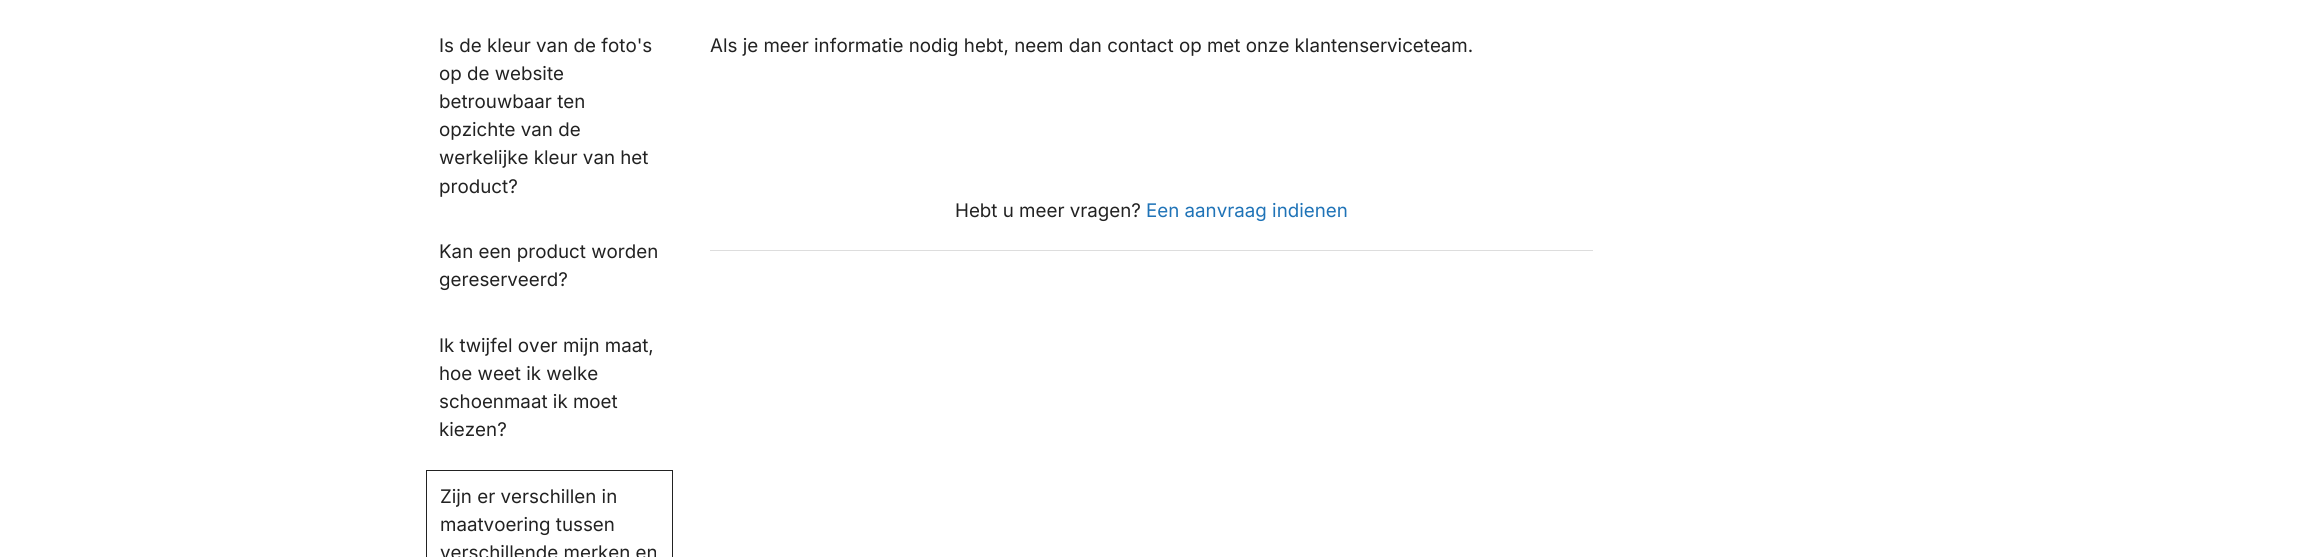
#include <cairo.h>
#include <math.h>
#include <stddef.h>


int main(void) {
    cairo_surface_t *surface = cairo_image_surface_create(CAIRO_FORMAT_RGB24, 2302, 557);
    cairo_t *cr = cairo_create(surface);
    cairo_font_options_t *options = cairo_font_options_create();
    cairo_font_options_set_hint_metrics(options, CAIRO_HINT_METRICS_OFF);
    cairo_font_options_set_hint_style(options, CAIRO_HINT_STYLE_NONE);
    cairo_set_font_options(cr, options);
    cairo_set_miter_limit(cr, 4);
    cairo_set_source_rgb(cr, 1, 1, 1);
    cairo_paint(cr);
    cairo_select_font_face(cr, "Inter", CAIRO_FONT_SLANT_NORMAL, CAIRO_FONT_WEIGHT_NORMAL);
    cairo_set_font_size(cr, 18.75);
    cairo_set_source_rgb(cr, 0.133, 0.133, 0.133);
    cairo_move_to(cr, 439, 52);
    cairo_show_text(cr, "Is de kleur van de foto's");
    cairo_move_to(cr, 439, 80);
    cairo_show_text(cr, "op de website");
    cairo_move_to(cr, 439, 108);
    cairo_show_text(cr, "betrouwbaar ten");
    cairo_move_to(cr, 439, 136);
    cairo_show_text(cr, "opzichte van de");
    cairo_move_to(cr, 439, 164);
    cairo_show_text(cr, "werkelijke kleur van het");
    cairo_move_to(cr, 439, 193);
    cairo_show_text(cr, "product?");
    cairo_move_to(cr, 439, 258);
    cairo_show_text(cr, "Kan een product worden");
    cairo_move_to(cr, 439, 286);
    cairo_show_text(cr, "gereserveerd?");
    cairo_move_to(cr, 439, 352);
    cairo_show_text(cr, "Ik twijfel over mijn maat,");
    cairo_move_to(cr, 439, 380);
    cairo_show_text(cr, "hoe weet ik welke");
    cairo_move_to(cr, 439, 408);
    cairo_show_text(cr, "schoenmaat ik moet");
    cairo_move_to(cr, 439, 436);
    cairo_show_text(cr, "kiezen?");
    cairo_rectangle(cr, 426.5, 470.5, 246, 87);
    cairo_set_line_width(cr, 1);
    cairo_stroke(cr);
    cairo_move_to(cr, 440, 503);
    cairo_show_text(cr, "Zijn er verschillen in");
    cairo_move_to(cr, 440, 531);
    cairo_show_text(cr, "maatvoering tussen");
    cairo_move_to(cr, 440, 559);
    cairo_show_text(cr, "verschillende merken en");
    cairo_move_to(cr, 710, 52);
    cairo_show_text(cr, "Als je meer informatie nodig hebt, neem dan contact op met onze klantenserviceteam.");
    cairo_move_to(cr, 955, 217);
    cairo_show_text(cr, "Hebt u meer vragen?");
    cairo_set_source_rgb(cr, 0.122, 0.451, 0.718);
    cairo_move_to(cr, 1146, 217);
    cairo_show_text(cr, "Een aanvraag indienen");
    cairo_set_source_rgb(cr, 0.867, 0.867, 0.867);
    cairo_rectangle(cr, 710, 250, 883, 1);
    cairo_fill(cr);
    cairo_surface_write_to_png(surface, "page.png");
    cairo_font_options_destroy(options);
    cairo_destroy(cr);
    cairo_surface_destroy(surface);
    return 0;
}
